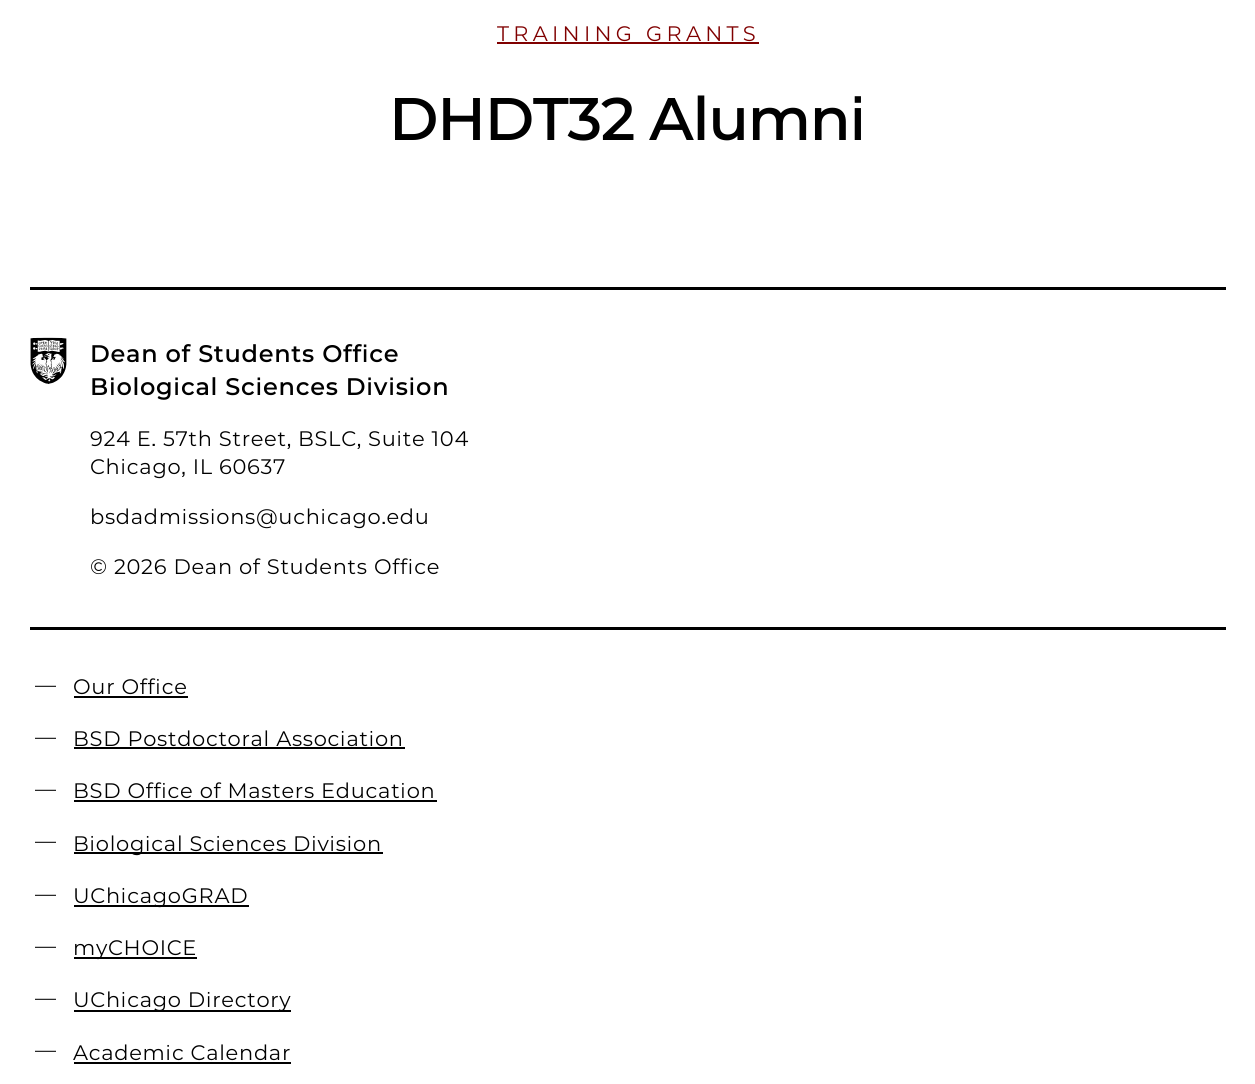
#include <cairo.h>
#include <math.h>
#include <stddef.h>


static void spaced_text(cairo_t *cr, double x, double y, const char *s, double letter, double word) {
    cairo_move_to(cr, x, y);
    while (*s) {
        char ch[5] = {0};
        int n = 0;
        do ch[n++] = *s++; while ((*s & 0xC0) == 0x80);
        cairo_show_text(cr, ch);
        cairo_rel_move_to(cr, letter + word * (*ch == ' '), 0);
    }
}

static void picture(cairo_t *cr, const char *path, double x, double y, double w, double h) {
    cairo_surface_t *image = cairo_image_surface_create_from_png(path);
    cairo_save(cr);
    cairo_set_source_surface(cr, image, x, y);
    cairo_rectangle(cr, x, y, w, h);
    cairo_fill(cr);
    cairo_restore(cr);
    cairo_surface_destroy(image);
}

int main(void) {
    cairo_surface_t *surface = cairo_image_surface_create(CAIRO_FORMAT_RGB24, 1255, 1084);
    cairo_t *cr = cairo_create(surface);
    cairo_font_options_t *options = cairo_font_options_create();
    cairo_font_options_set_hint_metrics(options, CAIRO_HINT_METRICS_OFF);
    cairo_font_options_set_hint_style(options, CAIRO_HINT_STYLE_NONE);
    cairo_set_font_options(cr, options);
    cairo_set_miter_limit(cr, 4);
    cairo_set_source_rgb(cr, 1, 1, 1);
    cairo_paint(cr);
    cairo_select_font_face(cr, "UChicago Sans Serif", CAIRO_FONT_SLANT_NORMAL, CAIRO_FONT_WEIGHT_NORMAL);
    cairo_set_font_size(cr, 21);
    cairo_set_source_rgb(cr, 0.502, 0, 0);
    spaced_text(cr, 497, 41, "TRAINING GRANTS", 4.25, 0);
    cairo_rectangle(cr, 497, 42, 262, 2);
    cairo_fill(cr);
    cairo_select_font_face(cr, "UChicago Sans Serif SemiBold", CAIRO_FONT_SLANT_NORMAL, CAIRO_FONT_WEIGHT_NORMAL);
    cairo_set_font_size(cr, 60);
    cairo_set_source_rgb(cr, 0, 0, 0);
    spaced_text(cr, 389, 140, "DHDT32 Alumni", -1.25, 0);
    cairo_rectangle(cr, 30, 287, 1196, 3);
    cairo_fill(cr);
    picture(cr, "img1.png", 30, 337, 37, 47);
    cairo_set_font_size(cr, 24);
    spaced_text(cr, 90, 362, "Dean of Students Office", 0.7, 0);
    spaced_text(cr, 90, 395, "Biological Sciences Division", 0.7, 0);
    cairo_select_font_face(cr, "UChicago Sans Serif", CAIRO_FONT_SLANT_NORMAL, CAIRO_FONT_WEIGHT_NORMAL);
    cairo_set_font_size(cr, 21);
    spaced_text(cr, 90, 446, "924 E. 57th Street, BSLC, Suite 104", 0.7, 0);
    spaced_text(cr, 90, 474, "Chicago, IL 60637", 0.7, 0);
    spaced_text(cr, 90, 524, "bsdadmissions@uchicago.edu", 0.7, 0);
    spaced_text(cr, 90, 574, "© 2026 Dean of Students Office", 0.7, 0);
    cairo_rectangle(cr, 30, 627, 1196, 3);
    cairo_fill(cr);
    spaced_text(cr, 35, 692, "—", 0.7, 0);
    spaced_text(cr, 73, 694, "Our Office", 0.7, 0);
    cairo_rectangle(cr, 74, 696, 114, 2);
    cairo_fill(cr);
    spaced_text(cr, 35, 744, "—", 0.7, 0);
    spaced_text(cr, 73, 746, "BSD Postdoctoral Association", 0.7, 0);
    cairo_rectangle(cr, 74, 747, 331, 2);
    cairo_fill(cr);
    spaced_text(cr, 35, 796, "—", 0.7, 0);
    spaced_text(cr, 73, 798, "BSD Office of Masters Education", 0.7, 0);
    cairo_rectangle(cr, 74, 800, 363, 2);
    cairo_fill(cr);
    spaced_text(cr, 35, 848, "—", 0.7, 0);
    cairo_rectangle(cr, 74, 852, 309, 2);
    cairo_fill(cr);
    spaced_text(cr, 73, 851, "Biological Sciences Division", 0.7, 0);
    spaced_text(cr, 35, 901, "—", 0.7, 0);
    cairo_rectangle(cr, 74, 905, 175, 2);
    cairo_fill(cr);
    spaced_text(cr, 73, 903, "UChicagoGRAD", 0.7, 0);
    spaced_text(cr, 35, 953, "—", 0.7, 0);
    cairo_rectangle(cr, 74, 957, 123, 2);
    cairo_fill(cr);
    spaced_text(cr, 73, 955, "myCHOICE", 0.7, 0);
    spaced_text(cr, 35, 1005, "—", 0.7, 0);
    cairo_rectangle(cr, 74, 1010, 217, 2);
    cairo_fill(cr);
    spaced_text(cr, 73, 1007, "UChicago Directory", 0.7, 0);
    spaced_text(cr, 35, 1057, "—", 0.7, 0);
    spaced_text(cr, 73, 1060, "Academic Calendar", 0.7, 0);
    cairo_rectangle(cr, 74, 1062, 217, 2);
    cairo_fill(cr);
    cairo_surface_write_to_png(surface, "page.png");
    cairo_font_options_destroy(options);
    cairo_destroy(cr);
    cairo_surface_destroy(surface);
    return 0;
}
